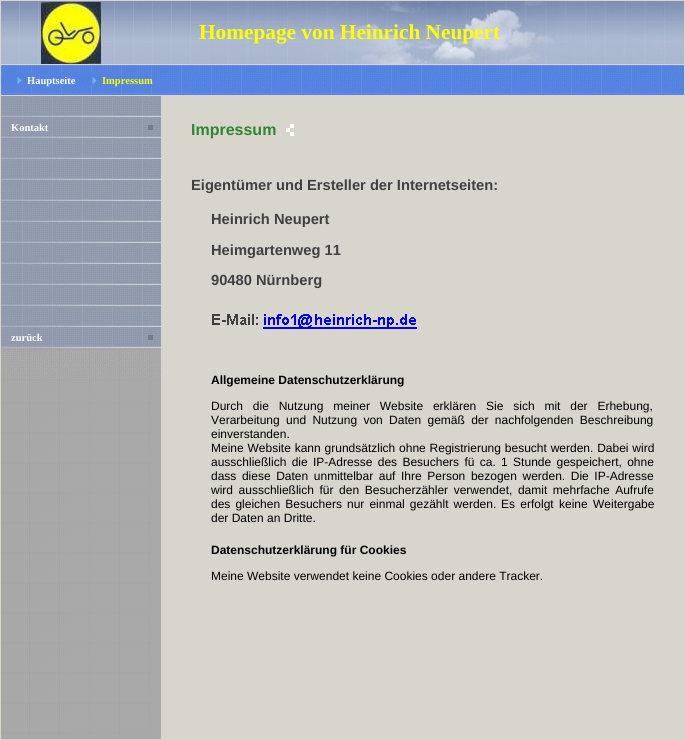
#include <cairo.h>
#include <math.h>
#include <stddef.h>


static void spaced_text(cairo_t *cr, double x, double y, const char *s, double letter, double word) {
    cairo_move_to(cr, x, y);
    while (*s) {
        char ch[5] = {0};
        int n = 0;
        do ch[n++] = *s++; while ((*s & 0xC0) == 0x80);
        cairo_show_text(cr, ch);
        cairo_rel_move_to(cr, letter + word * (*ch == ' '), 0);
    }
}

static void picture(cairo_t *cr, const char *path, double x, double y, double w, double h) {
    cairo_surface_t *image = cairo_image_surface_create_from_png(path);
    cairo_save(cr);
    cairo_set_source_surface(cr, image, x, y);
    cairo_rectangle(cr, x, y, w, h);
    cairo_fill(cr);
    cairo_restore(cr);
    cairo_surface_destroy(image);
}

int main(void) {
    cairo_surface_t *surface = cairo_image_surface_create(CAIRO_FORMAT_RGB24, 685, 740);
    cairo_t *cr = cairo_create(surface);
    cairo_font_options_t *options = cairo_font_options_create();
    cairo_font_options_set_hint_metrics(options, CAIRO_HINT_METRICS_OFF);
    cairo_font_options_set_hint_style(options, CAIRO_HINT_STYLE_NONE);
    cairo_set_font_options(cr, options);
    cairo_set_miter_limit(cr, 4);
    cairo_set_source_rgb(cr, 0.847, 0.835, 0.804);
    cairo_paint(cr);
    picture(cr, "img1.png", 1, 1, 683, 63);
    picture(cr, "img2.png", 209, 1, 459, 63);
    picture(cr, "img3.png", 41, 2, 60, 62);
    cairo_select_font_face(cr, "Liberation Serif", CAIRO_FONT_SLANT_NORMAL, CAIRO_FONT_WEIGHT_BOLD);
    cairo_set_font_size(cr, 21.3);
    cairo_set_source_rgb(cr, 1, 1, 0);
    cairo_move_to(cr, 199, 39);
    cairo_show_text(cr, "Homepage von Heinrich Neupert");
    picture(cr, "img4.png", 1, 65, 683, 30);
    picture(cr, "img5.png", 1, 75, 26, 10);
    cairo_set_font_size(cr, 10.5);
    cairo_set_source_rgb(cr, 1, 1, 1);
    cairo_move_to(cr, 27, 84);
    cairo_show_text(cr, "Hauptseite");
    picture(cr, "img5.png", 76, 75, 26, 10);
    cairo_set_source_rgb(cr, 1, 1, 0);
    cairo_move_to(cr, 102, 84);
    cairo_show_text(cr, "Impressum");
    picture(cr, "img6.png", 1, 380, 160, 359);
    picture(cr, "img7.png", 1, 348, 160, 32);
    picture(cr, "img8.png", 1, 96, 160, 1);
    picture(cr, "img9.png", 1, 97, 160, 20);
    picture(cr, "img8.png", 1, 117, 160, 1);
    picture(cr, "img9.png", 1, 118, 160, 20);
    cairo_set_source_rgb(cr, 1, 1, 1);
    cairo_move_to(cr, 11, 131);
    cairo_show_text(cr, "Kontakt");
    picture(cr, "img10.png", 148, 125, 5, 5);
    picture(cr, "img8.png", 1, 138, 160, 1);
    picture(cr, "img9.png", 1, 139, 160, 20);
    picture(cr, "img8.png", 1, 159, 160, 1);
    picture(cr, "img9.png", 1, 160, 160, 20);
    picture(cr, "img8.png", 1, 180, 160, 1);
    picture(cr, "img9.png", 1, 181, 160, 20);
    picture(cr, "img8.png", 1, 201, 160, 1);
    picture(cr, "img9.png", 1, 202, 160, 20);
    picture(cr, "img8.png", 1, 222, 160, 1);
    picture(cr, "img9.png", 1, 223, 160, 20);
    picture(cr, "img8.png", 1, 243, 160, 1);
    picture(cr, "img9.png", 1, 244, 160, 20);
    picture(cr, "img8.png", 1, 264, 160, 1);
    picture(cr, "img9.png", 1, 265, 160, 20);
    picture(cr, "img8.png", 1, 285, 160, 1);
    picture(cr, "img9.png", 1, 286, 160, 20);
    picture(cr, "img8.png", 1, 306, 160, 1);
    picture(cr, "img9.png", 1, 307, 160, 20);
    picture(cr, "img8.png", 1, 327, 160, 1);
    picture(cr, "img9.png", 1, 328, 160, 20);
    cairo_move_to(cr, 11, 341);
    cairo_show_text(cr, "zurück");
    picture(cr, "img10.png", 148, 335, 5, 5);
    cairo_select_font_face(cr, "Liberation Sans", CAIRO_FONT_SLANT_NORMAL, CAIRO_FONT_WEIGHT_BOLD);
    cairo_set_font_size(cr, 16);
    cairo_set_source_rgb(cr, 0.188, 0.522, 0.188);
    cairo_move_to(cr, 191, 135);
    cairo_show_text(cr, "Impressum");
    picture(cr, "img11.png", 286, 124, 8, 12);
    cairo_set_font_size(cr, 14.7);
    cairo_set_source_rgb(cr, 0.251, 0.251, 0.251);
    cairo_move_to(cr, 191, 190);
    cairo_show_text(cr, "Eigentümer und Ersteller der Internetseiten:");
    cairo_move_to(cr, 211, 224);
    cairo_show_text(cr, "Heinrich Neupert");
    cairo_move_to(cr, 211, 255);
    cairo_show_text(cr, "Heimgartenweg 11");
    cairo_move_to(cr, 211, 285);
    cairo_show_text(cr, "90480 Nürnberg");
    picture(cr, "img12.png", 212, 314, 101, 15);
    picture(cr, "img13.png", 313, 314, 104, 15);
    cairo_set_font_size(cr, 12);
    cairo_set_source_rgb(cr, 0, 0, 0);
    cairo_move_to(cr, 211, 384);
    cairo_show_text(cr, "Allgemeine Datenschutzerklärung");
    cairo_select_font_face(cr, "Liberation Sans", CAIRO_FONT_SLANT_NORMAL, CAIRO_FONT_WEIGHT_NORMAL);
    spaced_text(cr, 211, 410, "Durch die Nutzung meiner Website erklären Sie sich mit der Erhebung,", 0, 6.5);
    spaced_text(cr, 211, 424, "Verarbeitung und Nutzung von Daten gemäß der nachfolgenden Beschreibung", 0, 3);
    cairo_move_to(cr, 211, 438);
    cairo_show_text(cr, "einverstanden.");
    spaced_text(cr, 211, 452, "Meine Website kann grundsätzlich ohne Registrierung besucht werden. Dabei wird", 0, 0.5);
    spaced_text(cr, 211, 466, "ausschließlich die IP-Adresse des Besuchers fü ca. 1 Stunde gespeichert, ohne", 0, 2);
    spaced_text(cr, 211, 480, "dass diese Daten unmittelbar auf Ihre Person bezogen werden. Die IP-Adresse", 0, 2.25);
    spaced_text(cr, 211, 494, "wird ausschließlich für den Besucherzähler verwendet, damit mehrfache Aufrufe", 0, 2.25);
    spaced_text(cr, 211, 508, "des gleichen Besuchers nur einmal gezählt werden.", 0, 1.75);
    spaced_text(cr, 501, 508, "Es erfolgt keine Weitergabe", 0, 2);
    cairo_move_to(cr, 211, 522);
    cairo_show_text(cr, "der Daten an Dritte.");
    cairo_select_font_face(cr, "Liberation Sans", CAIRO_FONT_SLANT_NORMAL, CAIRO_FONT_WEIGHT_BOLD);
    cairo_move_to(cr, 211, 554);
    cairo_show_text(cr, "Datenschutzerklärung für Cookies");
    cairo_select_font_face(cr, "Liberation Sans", CAIRO_FONT_SLANT_NORMAL, CAIRO_FONT_WEIGHT_NORMAL);
    cairo_move_to(cr, 211, 580);
    cairo_show_text(cr, "Meine Website verwendet keine Cookies oder andere Tracker.");
    cairo_surface_write_to_png(surface, "page.png");
    cairo_font_options_destroy(options);
    cairo_destroy(cr);
    cairo_surface_destroy(surface);
    return 0;
}
